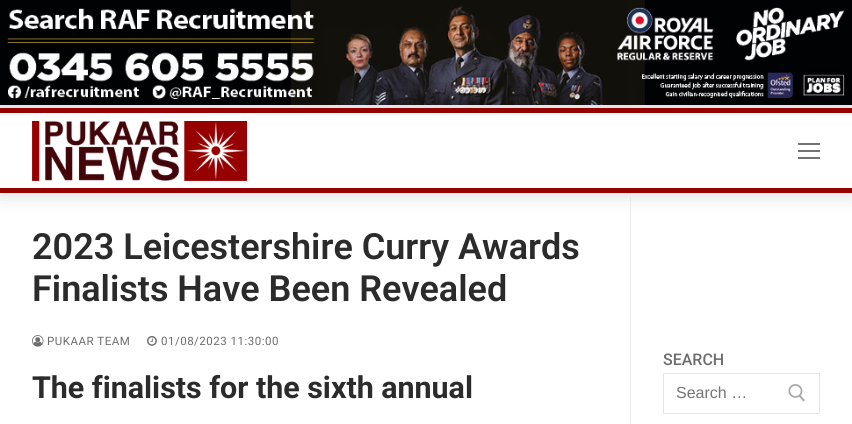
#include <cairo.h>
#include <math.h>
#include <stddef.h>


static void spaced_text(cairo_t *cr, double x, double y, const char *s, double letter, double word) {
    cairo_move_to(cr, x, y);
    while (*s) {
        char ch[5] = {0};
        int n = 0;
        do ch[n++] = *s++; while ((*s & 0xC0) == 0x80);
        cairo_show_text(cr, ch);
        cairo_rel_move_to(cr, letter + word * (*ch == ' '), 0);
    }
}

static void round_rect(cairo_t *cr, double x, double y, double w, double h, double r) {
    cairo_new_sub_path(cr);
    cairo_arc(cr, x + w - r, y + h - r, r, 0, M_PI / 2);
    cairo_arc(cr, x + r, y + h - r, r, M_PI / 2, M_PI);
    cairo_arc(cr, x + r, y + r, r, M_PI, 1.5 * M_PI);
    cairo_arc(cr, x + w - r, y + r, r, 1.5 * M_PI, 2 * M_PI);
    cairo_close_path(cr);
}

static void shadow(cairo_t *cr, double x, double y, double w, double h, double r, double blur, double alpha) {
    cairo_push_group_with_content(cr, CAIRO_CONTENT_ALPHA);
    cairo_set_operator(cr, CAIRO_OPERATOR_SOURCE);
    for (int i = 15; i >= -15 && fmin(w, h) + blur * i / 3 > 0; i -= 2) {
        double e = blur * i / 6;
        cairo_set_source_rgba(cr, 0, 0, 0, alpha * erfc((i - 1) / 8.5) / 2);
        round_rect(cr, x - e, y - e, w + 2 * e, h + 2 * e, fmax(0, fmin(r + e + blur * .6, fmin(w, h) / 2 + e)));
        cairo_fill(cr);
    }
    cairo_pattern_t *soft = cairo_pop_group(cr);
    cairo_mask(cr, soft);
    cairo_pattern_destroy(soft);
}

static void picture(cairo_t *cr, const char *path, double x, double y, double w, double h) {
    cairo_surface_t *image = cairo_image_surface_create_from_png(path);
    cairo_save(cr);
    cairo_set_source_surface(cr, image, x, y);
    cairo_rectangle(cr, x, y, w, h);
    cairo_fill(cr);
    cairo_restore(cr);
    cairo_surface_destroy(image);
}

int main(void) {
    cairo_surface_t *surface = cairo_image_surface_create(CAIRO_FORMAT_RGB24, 852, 424);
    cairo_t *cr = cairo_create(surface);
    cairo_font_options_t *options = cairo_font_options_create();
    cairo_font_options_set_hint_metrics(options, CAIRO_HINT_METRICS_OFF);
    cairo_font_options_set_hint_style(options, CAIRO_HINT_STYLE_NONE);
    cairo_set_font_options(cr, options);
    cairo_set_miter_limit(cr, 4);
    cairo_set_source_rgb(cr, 1, 1, 1);
    cairo_paint(cr);
    cairo_set_source_rgb(cr, 0.941, 0.941, 0.941);
    cairo_rectangle(cr, 0, 105, 852, 3);
    cairo_fill(cr);
    cairo_set_source_rgb(cr, 0.918, 0.925, 0.933);
    cairo_rectangle(cr, 630, 197, 1, 227);
    cairo_fill(cr);
    cairo_save(cr);
    cairo_set_fill_rule(cr, CAIRO_FILL_RULE_EVEN_ODD);
    cairo_new_path(cr);
    cairo_move_to(cr, 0, 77);
    cairo_line_to(cr, 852, 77);
    cairo_line_to(cr, 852, 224);
    cairo_line_to(cr, 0, 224);
    cairo_close_path(cr);
    cairo_move_to(cr, 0, 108);
    cairo_line_to(cr, 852, 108);
    cairo_line_to(cr, 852, 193);
    cairo_line_to(cr, 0, 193);
    cairo_close_path(cr);
    cairo_clip(cr);
    cairo_set_source_rgb(cr, 0.82, 0.835, 0.855);
    shadow(cr, 0, 108, 852, 85, 0, 10, 1);
    cairo_restore(cr);
    picture(cr, "img1.png", 0, 0, 852, 105);
    cairo_set_source_rgb(cr, 0.584, 0.008, 0.008);
    cairo_rectangle(cr, 0, 108, 852, 5);
    cairo_fill(cr);
    cairo_rectangle(cr, 0, 188, 852, 5);
    cairo_fill(cr);
    picture(cr, "img2.png", 32, 121, 215, 60);
    cairo_set_source_rgb(cr, 0.451, 0.451, 0.451);
    cairo_rectangle(cr, 798, 150, 22, 2);
    cairo_fill(cr);
    cairo_rectangle(cr, 798, 143, 22, 2);
    cairo_fill(cr);
    cairo_rectangle(cr, 798, 157, 22, 2);
    cairo_fill(cr);
    cairo_select_font_face(cr, "Roboto SemiBold", CAIRO_FONT_SLANT_NORMAL, CAIRO_FONT_WEIGHT_NORMAL);
    cairo_set_font_size(cr, 36);
    cairo_set_source_rgb(cr, 0.169, 0.169, 0.169);
    cairo_move_to(cr, 32, 259);
    cairo_show_text(cr, "2023 Leicestershire Curry Awards");
    cairo_move_to(cr, 32, 301);
    cairo_show_text(cr, "Finalists Have Been Revealed");
    picture(cr, "img3.png", 32, 335, 12, 12);
    cairo_select_font_face(cr, "Roboto", CAIRO_FONT_SLANT_NORMAL, CAIRO_FONT_WEIGHT_NORMAL);
    cairo_set_font_size(cr, 11.5);
    cairo_set_source_rgb(cr, 0.427, 0.427, 0.427);
    spaced_text(cr, 47, 345, "PUKAAR TEAM", 0.5, 0);
    picture(cr, "img4.png", 147, 336, 10, 10);
    spaced_text(cr, 161, 345, "01/08/2023 11:30:00", 0.5, 0);
    cairo_select_font_face(cr, "Roboto", CAIRO_FONT_SLANT_NORMAL, CAIRO_FONT_WEIGHT_BOLD);
    cairo_set_font_size(cr, 30.4);
    cairo_set_source_rgb(cr, 0.169, 0.169, 0.169);
    cairo_move_to(cr, 32, 398);
    cairo_show_text(cr, "The finalists for the sixth annual");
    cairo_select_font_face(cr, "Roboto Medium", CAIRO_FONT_SLANT_NORMAL, CAIRO_FONT_WEIGHT_NORMAL);
    cairo_set_font_size(cr, 16);
    cairo_set_source_rgb(cr, 0.427, 0.427, 0.427);
    cairo_move_to(cr, 663, 365);
    cairo_show_text(cr, "SEARCH");
    round_rect(cr, 663.5, 373.5, 156, 40, 0.5);
    cairo_set_source_rgb(cr, 0.898, 0.898, 0.898);
    cairo_set_line_width(cr, 1);
    cairo_stroke(cr);
    cairo_select_font_face(cr, "Liberation Sans", CAIRO_FONT_SLANT_NORMAL, CAIRO_FONT_WEIGHT_NORMAL);
    cairo_set_source_rgb(cr, 0.459, 0.459, 0.459);
    cairo_move_to(cr, 676, 398);
    cairo_show_text(cr, "Search …");
    picture(cr, "img5.png", 788, 384, 17, 18);
    cairo_surface_write_to_png(surface, "page.png");
    cairo_font_options_destroy(options);
    cairo_destroy(cr);
    cairo_surface_destroy(surface);
    return 0;
}
